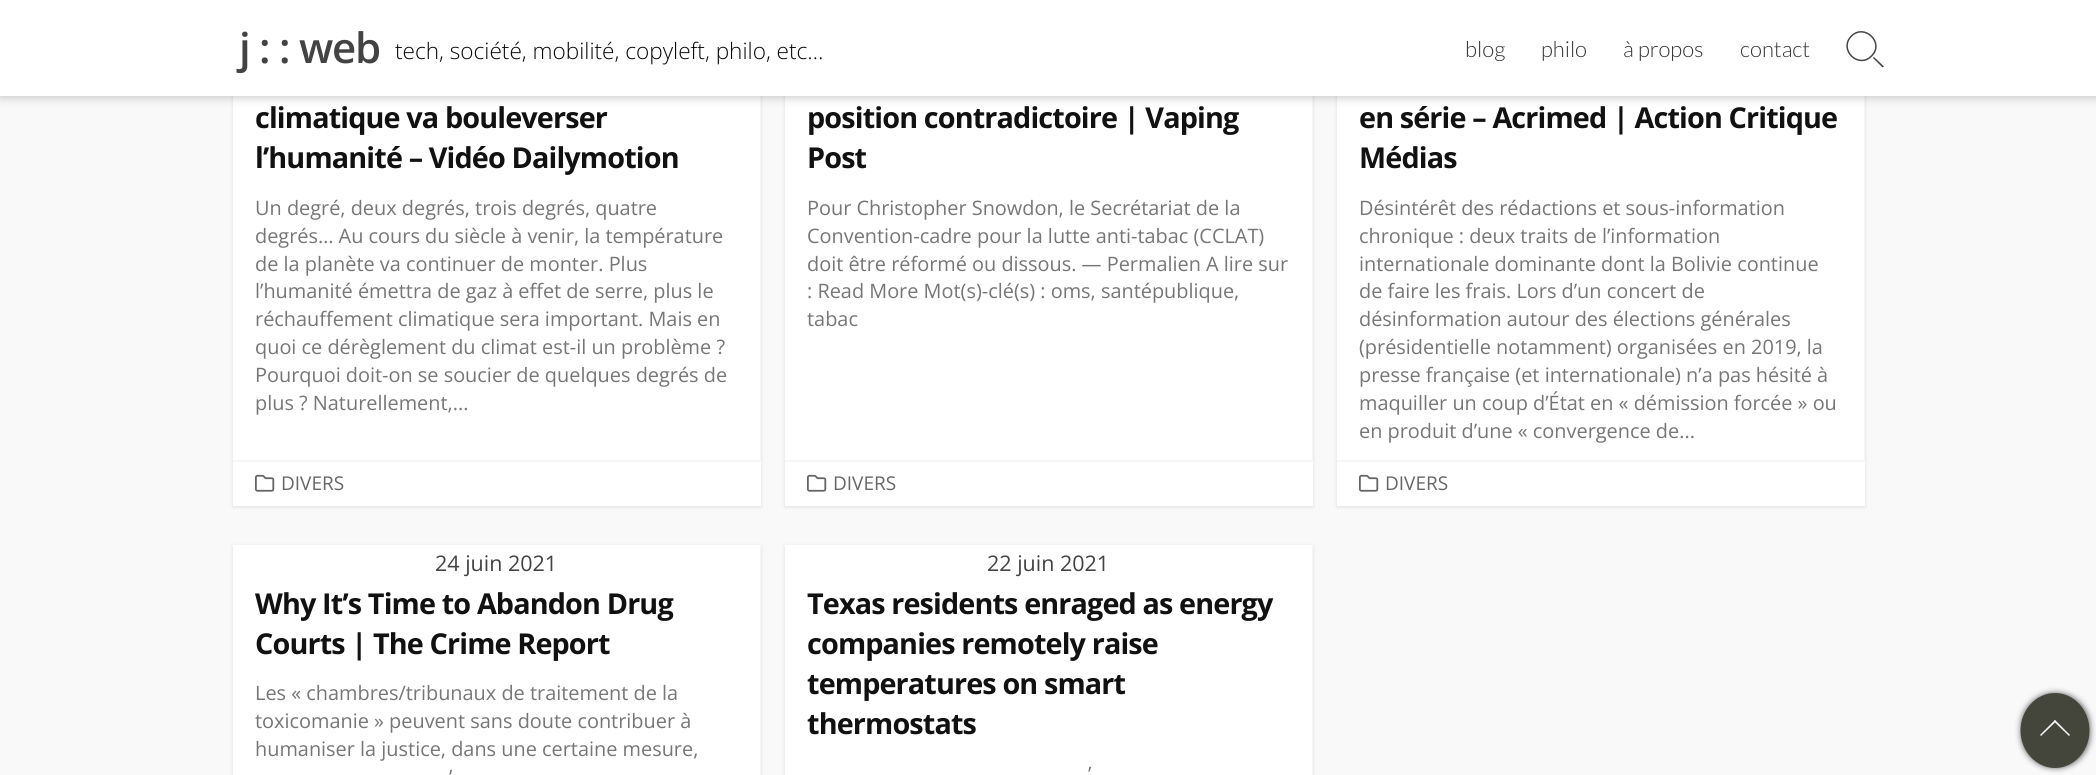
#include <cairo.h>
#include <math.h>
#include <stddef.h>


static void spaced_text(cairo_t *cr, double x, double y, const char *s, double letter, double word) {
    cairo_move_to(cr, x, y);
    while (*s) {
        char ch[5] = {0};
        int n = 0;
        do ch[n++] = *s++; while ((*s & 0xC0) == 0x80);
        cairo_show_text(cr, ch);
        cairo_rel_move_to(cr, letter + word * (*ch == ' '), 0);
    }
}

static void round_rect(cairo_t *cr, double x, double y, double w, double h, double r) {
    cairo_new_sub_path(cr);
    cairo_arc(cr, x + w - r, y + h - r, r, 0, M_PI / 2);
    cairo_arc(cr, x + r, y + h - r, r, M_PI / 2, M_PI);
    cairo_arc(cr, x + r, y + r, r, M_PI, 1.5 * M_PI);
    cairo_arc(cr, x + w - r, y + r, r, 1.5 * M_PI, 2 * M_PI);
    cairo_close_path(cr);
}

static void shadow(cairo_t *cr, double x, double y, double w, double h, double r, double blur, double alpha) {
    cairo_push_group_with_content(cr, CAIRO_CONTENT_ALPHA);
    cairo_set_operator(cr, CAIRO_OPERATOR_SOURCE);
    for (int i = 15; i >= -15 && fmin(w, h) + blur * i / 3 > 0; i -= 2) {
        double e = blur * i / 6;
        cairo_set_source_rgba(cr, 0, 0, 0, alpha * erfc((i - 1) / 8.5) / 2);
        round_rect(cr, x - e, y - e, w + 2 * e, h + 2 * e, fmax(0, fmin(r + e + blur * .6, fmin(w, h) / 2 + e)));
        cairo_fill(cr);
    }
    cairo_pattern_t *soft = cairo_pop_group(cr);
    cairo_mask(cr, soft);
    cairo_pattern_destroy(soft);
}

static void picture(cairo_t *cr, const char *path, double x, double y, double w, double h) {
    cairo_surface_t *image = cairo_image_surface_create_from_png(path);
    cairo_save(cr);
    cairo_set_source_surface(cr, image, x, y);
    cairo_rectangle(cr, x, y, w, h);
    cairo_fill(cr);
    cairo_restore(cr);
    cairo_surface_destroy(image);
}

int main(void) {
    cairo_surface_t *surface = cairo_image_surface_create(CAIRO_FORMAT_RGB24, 2096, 775);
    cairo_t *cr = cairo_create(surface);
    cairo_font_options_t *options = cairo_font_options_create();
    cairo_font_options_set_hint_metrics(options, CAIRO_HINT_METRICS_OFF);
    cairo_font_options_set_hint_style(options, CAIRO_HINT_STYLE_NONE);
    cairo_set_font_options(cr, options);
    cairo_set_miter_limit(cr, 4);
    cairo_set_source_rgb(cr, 0.973, 0.973, 0.973);
    cairo_paint(cr);
    cairo_set_source_rgb(cr, 0, 0, 0);
    shadow(cr, 233, 20, 528, 487, 0, 2, 0.1);
    cairo_set_source_rgb(cr, 1, 1, 1);
    cairo_rectangle(cr, 233, 96, 528, 410);
    cairo_fill(cr);
    cairo_set_source_rgb(cr, 0.961, 0.961, 0.961);
    cairo_new_path(cr);
    cairo_move_to(cr, 233, 460);
    cairo_line_to(cr, 233, 462);
    cairo_line_to(cr, 761, 462);
    cairo_line_to(cr, 761, 20);
    cairo_line_to(cr, 760, 20);
    cairo_line_to(cr, 760, 460);
    cairo_close_path(cr);
    cairo_fill(cr);
    cairo_set_source_rgb(cr, 0, 0, 0);
    shadow(cr, 785, 20, 528, 487, 0, 2, 0.1);
    cairo_set_source_rgb(cr, 1, 1, 1);
    cairo_rectangle(cr, 785, 96, 528, 410);
    cairo_fill(cr);
    cairo_set_source_rgb(cr, 0.961, 0.961, 0.961);
    cairo_new_path(cr);
    cairo_move_to(cr, 785, 460);
    cairo_line_to(cr, 785, 462);
    cairo_line_to(cr, 1313, 462);
    cairo_line_to(cr, 1313, 20);
    cairo_line_to(cr, 1312, 20);
    cairo_line_to(cr, 1312, 460);
    cairo_close_path(cr);
    cairo_fill(cr);
    cairo_set_source_rgb(cr, 0, 0, 0);
    shadow(cr, 1337, 20, 528, 487, 0, 2, 0.1);
    cairo_set_source_rgb(cr, 1, 1, 1);
    cairo_rectangle(cr, 1337, 96, 528, 410);
    cairo_fill(cr);
    cairo_set_source_rgb(cr, 0.961, 0.961, 0.961);
    cairo_new_path(cr);
    cairo_move_to(cr, 1337, 460);
    cairo_line_to(cr, 1337, 462);
    cairo_line_to(cr, 1865, 462);
    cairo_line_to(cr, 1865, 20);
    cairo_line_to(cr, 1864, 20);
    cairo_line_to(cr, 1864, 460);
    cairo_close_path(cr);
    cairo_fill(cr);
    cairo_set_source_rgb(cr, 0, 0, 0);
    shadow(cr, 0, 2, 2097, 96, 0, 4.5, 0.2);
    cairo_set_source_rgb(cr, 1, 1, 1);
    cairo_rectangle(cr, 0, 0, 2096, 96);
    cairo_fill(cr);
    cairo_select_font_face(cr, "Open Sans SemiBold", CAIRO_FONT_SLANT_NORMAL, CAIRO_FONT_WEIGHT_NORMAL);
    cairo_set_font_size(cr, 42);
    cairo_set_source_rgb(cr, 0.263, 0.263, 0.263);
    spaced_text(cr, 239, 63, "j : : web", -1.25, 0);
    cairo_select_font_face(cr, "Open Sans Light", CAIRO_FONT_SLANT_NORMAL, CAIRO_FONT_WEIGHT_NORMAL);
    cairo_set_font_size(cr, 22.6);
    cairo_set_source_rgb(cr, 0.039, 0.039, 0.039);
    cairo_move_to(cr, 395, 59);
    cairo_show_text(cr, "tech, société, mobilité, copyleft, philo, etc…");
    cairo_select_font_face(cr, "Lato Light", CAIRO_FONT_SLANT_NORMAL, CAIRO_FONT_WEIGHT_NORMAL);
    cairo_set_font_size(cr, 22);
    cairo_set_source_rgb(cr, 0.2, 0.2, 0.2);
    cairo_move_to(cr, 1465, 57);
    cairo_show_text(cr, "blog");
    cairo_move_to(cr, 1541, 57);
    cairo_show_text(cr, "philo");
    cairo_move_to(cr, 1623, 57);
    cairo_show_text(cr, "à propos");
    cairo_move_to(cr, 1740, 57);
    cairo_show_text(cr, "contact");
    cairo_new_path(cr);
    cairo_move_to(cr, 1851.5, 36);
    cairo_curve_to(cr, 1864.5, 23, 1885, 43, 1871.5, 56);
    cairo_curve_to(cr, 1858.5, 69.5, 1838, 49.5, 1851.5, 36);
    cairo_close_path(cr);
    cairo_set_source_rgb(cr, 0.267, 0.267, 0.267);
    cairo_set_line_width(cr, 1.5);
    cairo_stroke(cr);
    cairo_new_path(cr);
    cairo_move_to(cr, 1873, 58);
    cairo_line_to(cr, 1874, 57);
    cairo_line_to(cr, 1884, 66.5);
    cairo_line_to(cr, 1882.5, 67.5);
    cairo_close_path(cr);
    cairo_fill(cr);
    cairo_select_font_face(cr, "Open Sans", CAIRO_FONT_SLANT_NORMAL, CAIRO_FONT_WEIGHT_BOLD);
    cairo_set_font_size(cr, 28.75);
    cairo_set_source_rgb(cr, 0.067, 0.067, 0.067);
    spaced_text(cr, 255, 128, "climatique va bouleverser", -0.85, 0);
    spaced_text(cr, 255, 168, "l’humanité – Vidéo Dailymotion", -0.85, 0);
    cairo_select_font_face(cr, "Open Sans", CAIRO_FONT_SLANT_NORMAL, CAIRO_FONT_WEIGHT_NORMAL);
    cairo_set_font_size(cr, 19.9);
    cairo_set_source_rgb(cr, 0.467, 0.463, 0.463);
    cairo_move_to(cr, 255, 215);
    cairo_show_text(cr, "Un degré, deux degrés, trois degrés, quatre");
    cairo_move_to(cr, 255, 243);
    cairo_show_text(cr, "degrés… Au cours du siècle à venir, la température");
    cairo_move_to(cr, 255, 271);
    cairo_show_text(cr, "de la planète va continuer de monter. Plus");
    cairo_move_to(cr, 255, 298);
    cairo_show_text(cr, "l’humanité émettra de gaz à effet de serre, plus le");
    cairo_move_to(cr, 255, 326);
    cairo_show_text(cr, "réchauffement climatique sera important. Mais en");
    cairo_move_to(cr, 255, 354);
    cairo_show_text(cr, "quoi ce dérèglement du climat est-il un problème ?");
    cairo_move_to(cr, 255, 382);
    cairo_show_text(cr, "Pourquoi doit-on se soucier de quelques degrés de");
    cairo_move_to(cr, 255, 410);
    cairo_show_text(cr, "plus ? Naturellement,...");
    picture(cr, "img1.png", 255, 474, 20, 18);
    cairo_set_font_size(cr, 19);
    cairo_set_source_rgb(cr, 0.4, 0.4, 0.4);
    cairo_move_to(cr, 281, 490);
    cairo_show_text(cr, "DIVERS");
    cairo_select_font_face(cr, "Open Sans", CAIRO_FONT_SLANT_NORMAL, CAIRO_FONT_WEIGHT_BOLD);
    cairo_set_font_size(cr, 28.75);
    cairo_set_source_rgb(cr, 0.067, 0.067, 0.067);
    spaced_text(cr, 807, 128, "position contradictoire | Vaping", -0.85, 0);
    spaced_text(cr, 807, 168, "Post", -0.85, 0);
    cairo_select_font_face(cr, "Open Sans", CAIRO_FONT_SLANT_NORMAL, CAIRO_FONT_WEIGHT_NORMAL);
    cairo_set_font_size(cr, 19.9);
    cairo_set_source_rgb(cr, 0.467, 0.463, 0.463);
    cairo_move_to(cr, 807, 215);
    cairo_show_text(cr, "Pour Christopher Snowdon, le Secrétariat de la");
    cairo_move_to(cr, 807, 243);
    cairo_show_text(cr, "Convention-cadre pour la lutte anti-tabac (CCLAT)");
    cairo_move_to(cr, 807, 271);
    cairo_show_text(cr, "doit être réformé ou dissous. — Permalien A lire sur");
    cairo_move_to(cr, 807, 298);
    cairo_show_text(cr, ": Read More Mot(s)-clé(s) : oms, santépublique,");
    cairo_move_to(cr, 807, 326);
    cairo_show_text(cr, "tabac");
    picture(cr, "img1.png", 807, 474, 20, 18);
    cairo_set_font_size(cr, 19);
    cairo_set_source_rgb(cr, 0.4, 0.4, 0.4);
    cairo_move_to(cr, 833, 490);
    cairo_show_text(cr, "DIVERS");
    cairo_select_font_face(cr, "Open Sans", CAIRO_FONT_SLANT_NORMAL, CAIRO_FONT_WEIGHT_BOLD);
    cairo_set_font_size(cr, 28.75);
    cairo_set_source_rgb(cr, 0.067, 0.067, 0.067);
    spaced_text(cr, 1359, 128, "en série – Acrimed | Action Critique", -0.85, 0);
    spaced_text(cr, 1359, 168, "Médias", -0.85, 0);
    cairo_select_font_face(cr, "Open Sans", CAIRO_FONT_SLANT_NORMAL, CAIRO_FONT_WEIGHT_NORMAL);
    cairo_set_font_size(cr, 19.9);
    cairo_set_source_rgb(cr, 0.467, 0.463, 0.463);
    cairo_move_to(cr, 1359, 215);
    cairo_show_text(cr, "Désintérêt des rédactions et sous-information");
    cairo_move_to(cr, 1359, 243);
    cairo_show_text(cr, "chronique : deux traits de l’information");
    cairo_move_to(cr, 1359, 271);
    cairo_show_text(cr, "internationale dominante dont la Bolivie continue");
    cairo_move_to(cr, 1359, 298);
    cairo_show_text(cr, "de faire les frais. Lors d’un concert de");
    cairo_move_to(cr, 1359, 326);
    cairo_show_text(cr, "désinformation autour des élections générales");
    cairo_move_to(cr, 1359, 354);
    cairo_show_text(cr, "(présidentielle notamment) organisées en 2019, la");
    cairo_move_to(cr, 1359, 382);
    cairo_show_text(cr, "presse française (et internationale) n’a pas hésité à");
    cairo_move_to(cr, 1359, 410);
    cairo_show_text(cr, "maquiller un coup d’État en « démission forcée » ou");
    cairo_move_to(cr, 1359, 438);
    cairo_show_text(cr, "en produit d’une « convergence de...");
    picture(cr, "img1.png", 1359, 474, 20, 18);
    cairo_set_font_size(cr, 19);
    cairo_set_source_rgb(cr, 0.4, 0.4, 0.4);
    cairo_move_to(cr, 1385, 490);
    cairo_show_text(cr, "DIVERS");
    cairo_set_source_rgb(cr, 0, 0, 0);
    shadow(cr, 233, 546, 528, 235, 0, 2, 0.1);
    cairo_set_source_rgb(cr, 1, 1, 1);
    cairo_rectangle(cr, 233, 545, 528, 230);
    cairo_fill(cr);
    cairo_set_source_rgb(cr, 0.961, 0.961, 0.961);
    cairo_new_path(cr);
    cairo_move_to(cr, 233, 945);
    cairo_line_to(cr, 233, 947);
    cairo_line_to(cr, 761, 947);
    cairo_line_to(cr, 761, 546);
    cairo_line_to(cr, 760, 546);
    cairo_line_to(cr, 760, 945);
    cairo_close_path(cr);
    cairo_fill(cr);
    cairo_set_font_size(cr, 21.5);
    cairo_set_source_rgb(cr, 0.263, 0.263, 0.263);
    cairo_move_to(cr, 435, 571);
    cairo_show_text(cr, "24 juin 2021");
    cairo_select_font_face(cr, "Open Sans", CAIRO_FONT_SLANT_NORMAL, CAIRO_FONT_WEIGHT_BOLD);
    cairo_set_font_size(cr, 28.75);
    cairo_set_source_rgb(cr, 0.067, 0.067, 0.067);
    spaced_text(cr, 255, 614, "Why It’s Time to Abandon Drug", -0.85, 0);
    spaced_text(cr, 255, 654, "Courts | The Crime Report", -0.85, 0);
    cairo_select_font_face(cr, "Open Sans", CAIRO_FONT_SLANT_NORMAL, CAIRO_FONT_WEIGHT_NORMAL);
    cairo_set_font_size(cr, 19.9);
    cairo_set_source_rgb(cr, 0.467, 0.463, 0.463);
    cairo_move_to(cr, 255, 700);
    cairo_show_text(cr, "Les « chambres/tribunaux de traitement de la");
    cairo_move_to(cr, 255, 728);
    cairo_show_text(cr, "toxicomanie » peuvent sans doute contribuer à");
    cairo_move_to(cr, 255, 756);
    cairo_show_text(cr, "humaniser la justice, dans une certaine mesure,");
    cairo_move_to(cr, 449, 784);
    cairo_show_text(cr, "’");
    cairo_set_source_rgb(cr, 0, 0, 0);
    shadow(cr, 785, 546, 528, 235, 0, 2, 0.1);
    cairo_set_source_rgb(cr, 1, 1, 1);
    cairo_rectangle(cr, 785, 545, 528, 230);
    cairo_fill(cr);
    cairo_set_source_rgb(cr, 0.961, 0.961, 0.961);
    cairo_new_path(cr);
    cairo_move_to(cr, 785, 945);
    cairo_line_to(cr, 785, 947);
    cairo_line_to(cr, 1313, 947);
    cairo_line_to(cr, 1313, 546);
    cairo_line_to(cr, 1312, 546);
    cairo_line_to(cr, 1312, 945);
    cairo_close_path(cr);
    cairo_fill(cr);
    cairo_set_font_size(cr, 21.5);
    cairo_set_source_rgb(cr, 0.263, 0.263, 0.263);
    cairo_move_to(cr, 987, 571);
    cairo_show_text(cr, "22 juin 2021");
    cairo_select_font_face(cr, "Open Sans", CAIRO_FONT_SLANT_NORMAL, CAIRO_FONT_WEIGHT_BOLD);
    cairo_set_font_size(cr, 28.75);
    cairo_set_source_rgb(cr, 0.067, 0.067, 0.067);
    spaced_text(cr, 807, 614, "Texas residents enraged as energy", -0.85, 0);
    spaced_text(cr, 807, 654, "companies remotely raise", -0.85, 0);
    spaced_text(cr, 807, 694, "temperatures on smart", -0.85, 0);
    spaced_text(cr, 807, 734, "thermostats", -0.85, 0);
    cairo_select_font_face(cr, "Open Sans", CAIRO_FONT_SLANT_NORMAL, CAIRO_FONT_WEIGHT_NORMAL);
    cairo_set_font_size(cr, 19.9);
    cairo_set_source_rgb(cr, 0.467, 0.463, 0.463);
    cairo_move_to(cr, 1088, 781);
    cairo_show_text(cr, "’");
    cairo_set_source_rgb(cr, 0, 0, 0);
    shadow(cr, 2021, 693, 69, 75, 34.5, 3, 0.6);
    cairo_set_source_rgb(cr, 0.267, 0.275, 0.231);
    cairo_new_path(cr);
    cairo_move_to(cr, 2055, 693);
    cairo_curve_to(cr, 2074, 693, 2089.5, 710, 2089.5, 730.5);
    cairo_curve_to(cr, 2089.5, 751, 2074, 768, 2055, 768);
    cairo_curve_to(cr, 2036, 768, 2020.5, 751, 2020.5, 730.5);
    cairo_curve_to(cr, 2020.5, 710, 2036, 693, 2055, 693);
    cairo_close_path(cr);
    cairo_fill(cr);
    cairo_set_source_rgb(cr, 0.969, 0.969, 0.969);
    cairo_new_path(cr);
    cairo_move_to(cr, 2055, 720);
    cairo_line_to(cr, 2070, 735);
    cairo_line_to(cr, 2069, 736);
    cairo_line_to(cr, 2054, 721.5);
    cairo_close_path(cr);
    cairo_fill(cr);
    cairo_new_path(cr);
    cairo_move_to(cr, 2055, 720);
    cairo_line_to(cr, 2056, 721.5);
    cairo_line_to(cr, 2041, 736);
    cairo_line_to(cr, 2040, 735);
    cairo_close_path(cr);
    cairo_fill(cr);
    cairo_surface_write_to_png(surface, "page.png");
    cairo_font_options_destroy(options);
    cairo_destroy(cr);
    cairo_surface_destroy(surface);
    return 0;
}
